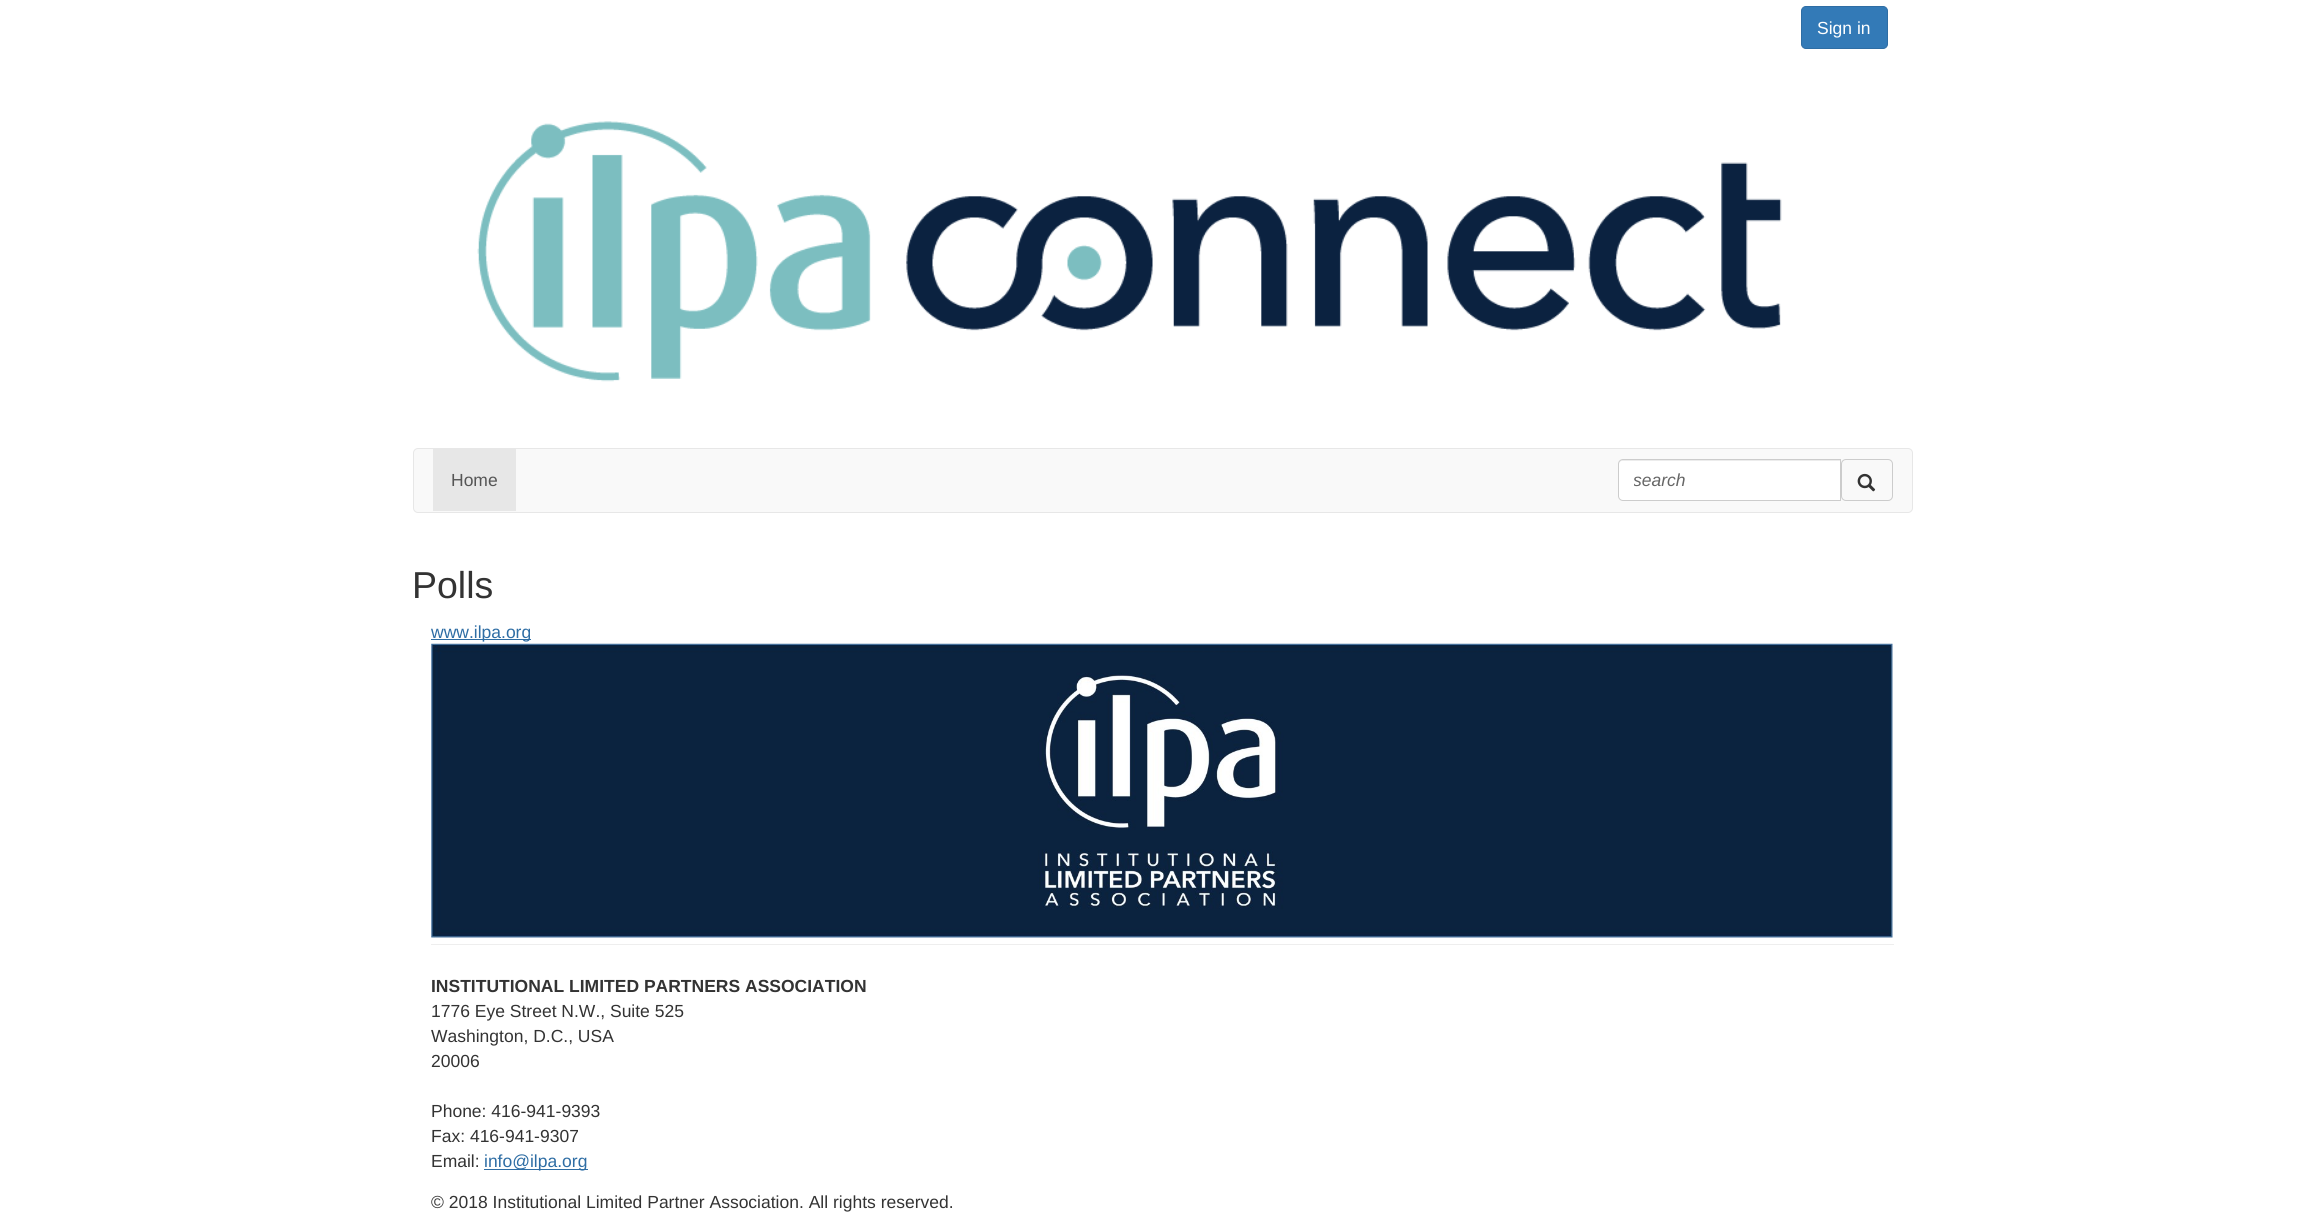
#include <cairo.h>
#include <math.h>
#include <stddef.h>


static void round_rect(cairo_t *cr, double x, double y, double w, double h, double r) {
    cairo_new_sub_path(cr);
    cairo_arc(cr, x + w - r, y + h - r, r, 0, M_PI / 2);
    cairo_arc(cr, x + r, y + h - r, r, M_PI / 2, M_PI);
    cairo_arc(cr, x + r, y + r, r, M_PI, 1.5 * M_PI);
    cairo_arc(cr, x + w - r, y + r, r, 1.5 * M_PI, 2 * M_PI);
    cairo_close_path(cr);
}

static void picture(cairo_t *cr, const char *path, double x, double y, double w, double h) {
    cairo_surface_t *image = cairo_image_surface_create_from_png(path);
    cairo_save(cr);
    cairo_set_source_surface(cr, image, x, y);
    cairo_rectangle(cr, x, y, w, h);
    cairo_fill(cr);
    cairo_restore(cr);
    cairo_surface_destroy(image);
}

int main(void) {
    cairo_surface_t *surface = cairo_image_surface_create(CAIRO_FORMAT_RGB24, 2323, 1224);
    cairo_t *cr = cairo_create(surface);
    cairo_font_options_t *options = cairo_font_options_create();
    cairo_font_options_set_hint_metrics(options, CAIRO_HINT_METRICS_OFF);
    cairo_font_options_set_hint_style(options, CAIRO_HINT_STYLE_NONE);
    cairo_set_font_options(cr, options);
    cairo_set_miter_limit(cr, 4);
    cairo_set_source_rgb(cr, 1, 1, 1);
    cairo_paint(cr);
    cairo_set_source_rgb(cr, 0.2, 0.478, 0.718);
    round_rect(cr, 1801.5, 6.5, 86, 42, 4.5);
    cairo_fill_preserve(cr);
    cairo_set_source_rgb(cr, 0.18, 0.427, 0.643);
    cairo_set_line_width(cr, 1);
    cairo_stroke(cr);
    cairo_select_font_face(cr, "Liberation Sans", CAIRO_FONT_SLANT_NORMAL, CAIRO_FONT_WEIGHT_NORMAL);
    cairo_set_font_size(cr, 17.5);
    cairo_set_source_rgb(cr, 1, 1, 1);
    cairo_move_to(cr, 1817, 34);
    cairo_show_text(cr, "Sign in");
    picture(cr, "img1.png", 477, 121, 1305, 261);
    cairo_set_source_rgb(cr, 0.973, 0.973, 0.973);
    round_rect(cr, 413.5, 448.5, 1499, 64, 4.5);
    cairo_fill_preserve(cr);
    cairo_set_source_rgb(cr, 0.906, 0.906, 0.906);
    cairo_stroke(cr);
    cairo_rectangle(cr, 433, 449, 83, 62);
    cairo_fill(cr);
    cairo_set_source_rgb(cr, 0.333, 0.333, 0.333);
    cairo_move_to(cr, 451, 486);
    cairo_show_text(cr, "Home");
    cairo_set_source_rgb(cr, 1, 1, 1);
    cairo_new_path(cr);
    cairo_move_to(cr, 1623, 459);
    cairo_line_to(cr, 1841, 459);
    cairo_line_to(cr, 1841, 501);
    cairo_line_to(cr, 1623, 501);
    cairo_curve_to(cr, 1620, 501, 1618, 499, 1618, 496);
    cairo_line_to(cr, 1618, 464);
    cairo_curve_to(cr, 1618, 461, 1620, 459, 1623, 459);
    cairo_close_path(cr);
    cairo_fill(cr);
    cairo_set_source_rgb(cr, 0.925, 0.925, 0.925);
    cairo_new_path(cr);
    cairo_move_to(cr, 1622, 461);
    cairo_line_to(cr, 1840, 461);
    cairo_line_to(cr, 1840, 460);
    cairo_line_to(cr, 1623, 460);
    cairo_curve_to(cr, 1620, 460, 1619, 462, 1619, 465);
    cairo_curve_to(cr, 1619, 463, 1620, 461, 1622, 461);
    cairo_close_path(cr);
    cairo_fill(cr);
    cairo_new_path(cr);
    cairo_move_to(cr, 1623, 459.5);
    cairo_line_to(cr, 1840.5, 459.5);
    cairo_line_to(cr, 1840.5, 500.5);
    cairo_line_to(cr, 1623, 500.5);
    cairo_curve_to(cr, 1620.5, 500.5, 1618.5, 498.5, 1618.5, 496);
    cairo_line_to(cr, 1618.5, 464);
    cairo_curve_to(cr, 1618.5, 461.5, 1620.5, 459.5, 1623, 459.5);
    cairo_close_path(cr);
    cairo_set_source_rgb(cr, 0.8, 0.8, 0.8);
    cairo_stroke(cr);
    cairo_save(cr);
    cairo_rectangle(cr, 1634, 470, 191, 20);
    cairo_clip(cr);
    cairo_select_font_face(cr, "Liberation Sans", CAIRO_FONT_SLANT_ITALIC, CAIRO_FONT_WEIGHT_NORMAL);
    cairo_set_source_rgb(cr, 0.4, 0.4, 0.4);
    cairo_move_to(cr, 1633, 486);
    cairo_show_text(cr, "search");
    cairo_restore(cr);
    round_rect(cr, 1841.5, 459.5, 51, 41, 4.5);
    cairo_stroke(cr);
    picture(cr, "img2.png", 1857, 473, 19, 19);
    cairo_set_font_size(cr, 37.5);
    cairo_set_source_rgb(cr, 0.2, 0.2, 0.2);
    cairo_move_to(cr, 412, 598);
    cairo_show_text(cr, "Polls");
    cairo_set_source_rgb(cr, 0.18, 0.427, 0.643);
    cairo_rectangle(cr, 431, 639, 100, 1);
    cairo_fill(cr);
    cairo_set_font_size(cr, 17.5);
    cairo_move_to(cr, 431, 638);
    cairo_show_text(cr, "www.ilpa.org");
    picture(cr, "img3.png", 431, 643, 1462, 295);
    cairo_set_source_rgb(cr, 0.933, 0.933, 0.933);
    cairo_rectangle(cr, 431, 944, 1463, 1);
    cairo_fill(cr);
    cairo_select_font_face(cr, "Liberation Sans", CAIRO_FONT_SLANT_NORMAL, CAIRO_FONT_WEIGHT_BOLD);
    cairo_set_source_rgb(cr, 0.2, 0.2, 0.2);
    cairo_move_to(cr, 431, 992);
    cairo_show_text(cr, "INSTITUTIONAL LIMITED PARTNERS ASSOCIATION");
    cairo_select_font_face(cr, "Liberation Sans", CAIRO_FONT_SLANT_NORMAL, CAIRO_FONT_WEIGHT_NORMAL);
    cairo_move_to(cr, 431, 1017);
    cairo_show_text(cr, "1776 Eye Street N.W., Suite 525");
    cairo_move_to(cr, 431, 1042);
    cairo_show_text(cr, "Washington, D.C., USA");
    cairo_move_to(cr, 431, 1067);
    cairo_show_text(cr, "20006");
    cairo_move_to(cr, 431, 1117);
    cairo_show_text(cr, "Phone: 416-941-9393");
    cairo_move_to(cr, 431, 1142);
    cairo_show_text(cr, "Fax: 416-941-9307");
    cairo_move_to(cr, 431, 1167);
    cairo_show_text(cr, "Email:");
    cairo_set_source_rgb(cr, 0.18, 0.427, 0.643);
    cairo_rectangle(cr, 484, 1169, 104, 1);
    cairo_fill(cr);
    cairo_move_to(cr, 484, 1167);
    cairo_show_text(cr, "info@ilpa.org");
    cairo_set_source_rgb(cr, 0.2, 0.2, 0.2);
    cairo_move_to(cr, 431, 1208);
    cairo_show_text(cr, "© 2018 Institutional Limited Partner Association. All rights reserved.");
    cairo_surface_write_to_png(surface, "page.png");
    cairo_font_options_destroy(options);
    cairo_destroy(cr);
    cairo_surface_destroy(surface);
    return 0;
}
